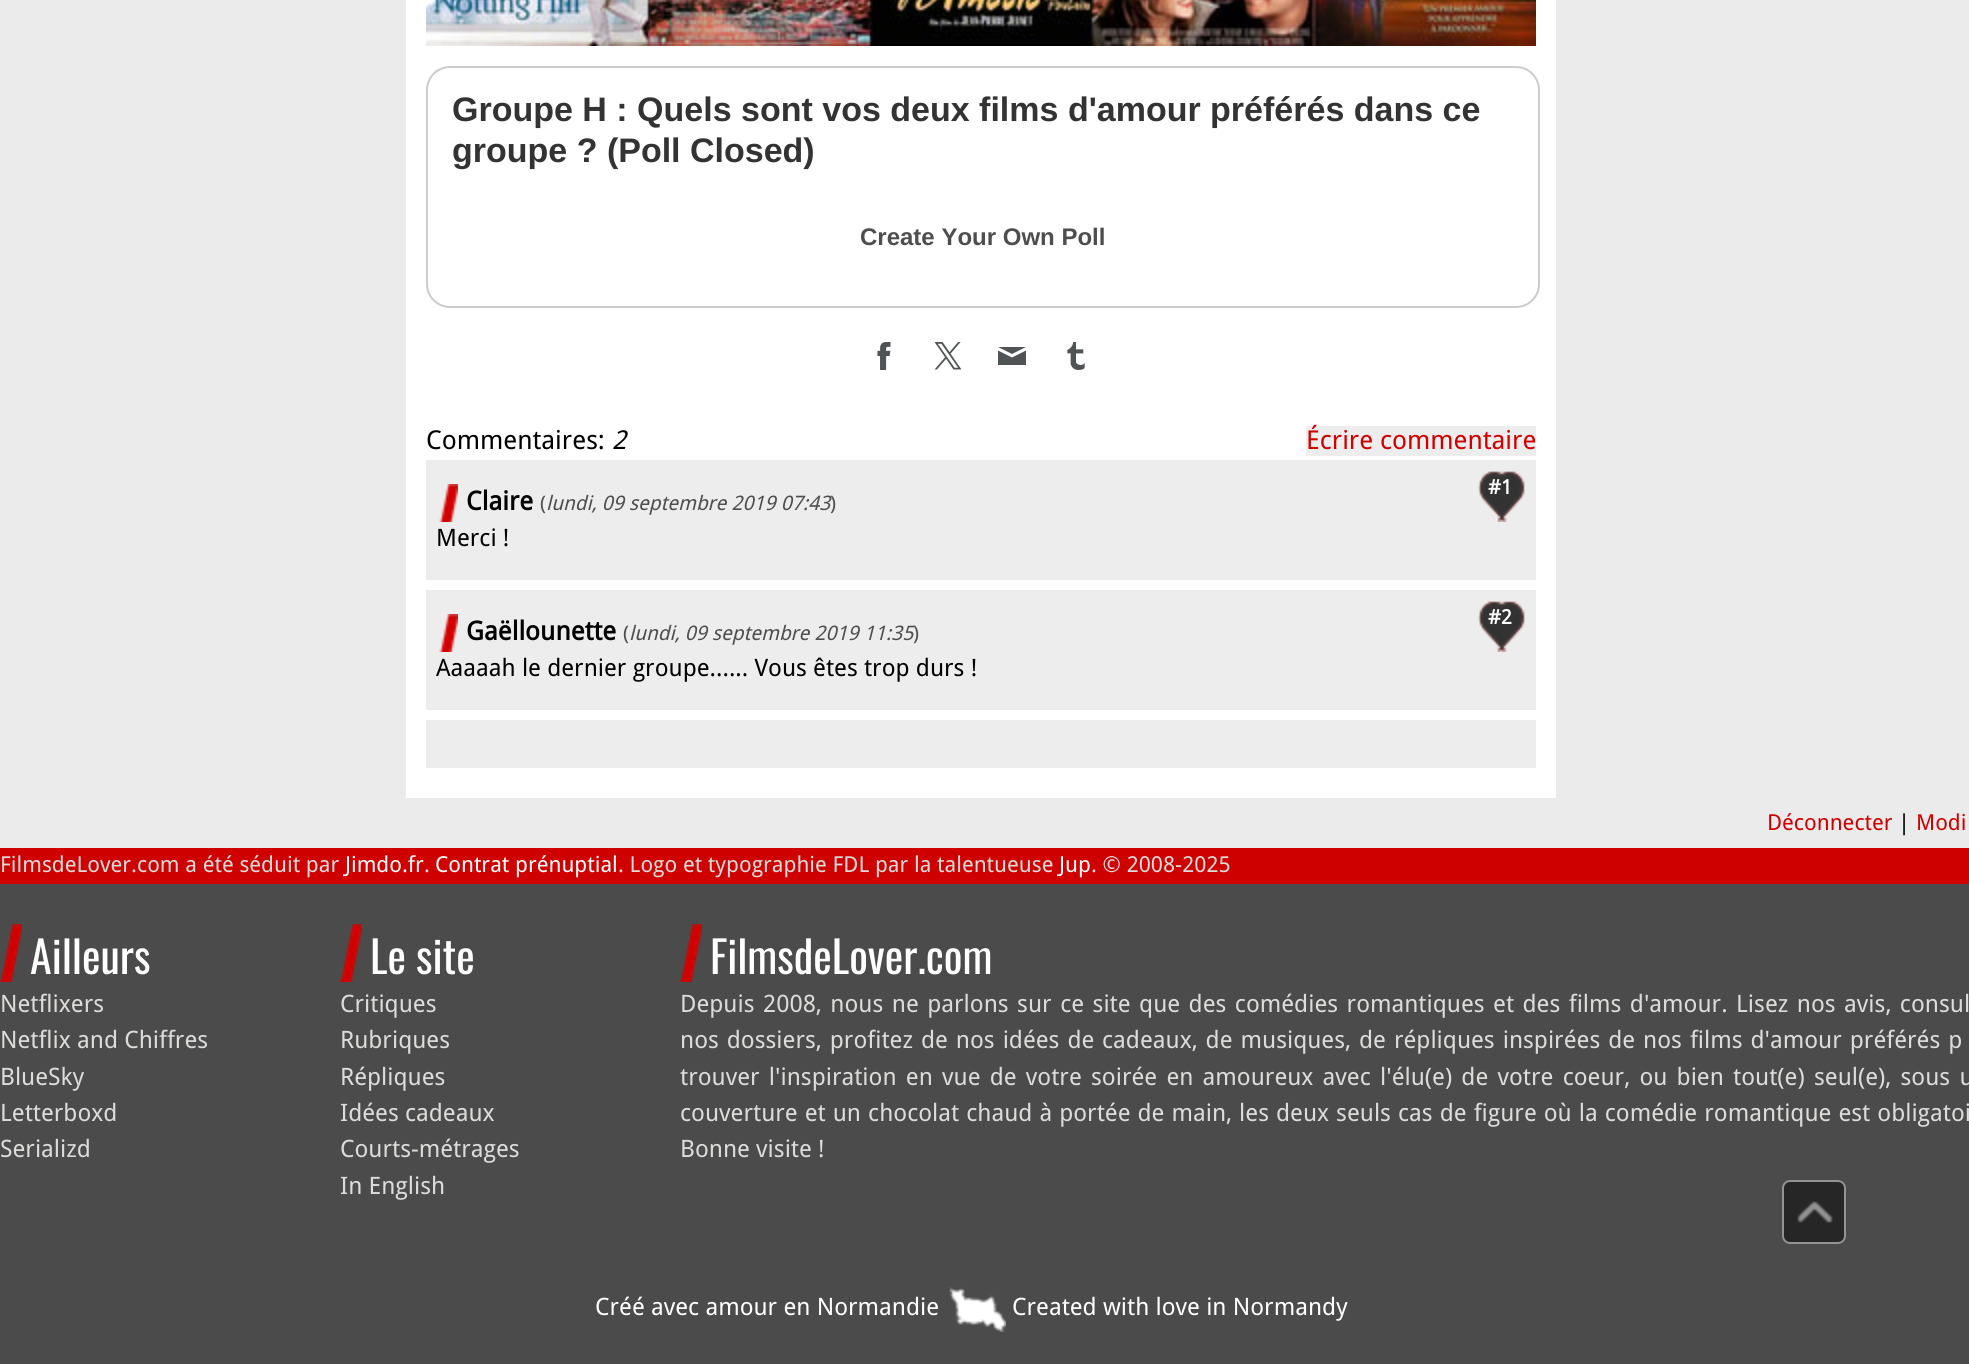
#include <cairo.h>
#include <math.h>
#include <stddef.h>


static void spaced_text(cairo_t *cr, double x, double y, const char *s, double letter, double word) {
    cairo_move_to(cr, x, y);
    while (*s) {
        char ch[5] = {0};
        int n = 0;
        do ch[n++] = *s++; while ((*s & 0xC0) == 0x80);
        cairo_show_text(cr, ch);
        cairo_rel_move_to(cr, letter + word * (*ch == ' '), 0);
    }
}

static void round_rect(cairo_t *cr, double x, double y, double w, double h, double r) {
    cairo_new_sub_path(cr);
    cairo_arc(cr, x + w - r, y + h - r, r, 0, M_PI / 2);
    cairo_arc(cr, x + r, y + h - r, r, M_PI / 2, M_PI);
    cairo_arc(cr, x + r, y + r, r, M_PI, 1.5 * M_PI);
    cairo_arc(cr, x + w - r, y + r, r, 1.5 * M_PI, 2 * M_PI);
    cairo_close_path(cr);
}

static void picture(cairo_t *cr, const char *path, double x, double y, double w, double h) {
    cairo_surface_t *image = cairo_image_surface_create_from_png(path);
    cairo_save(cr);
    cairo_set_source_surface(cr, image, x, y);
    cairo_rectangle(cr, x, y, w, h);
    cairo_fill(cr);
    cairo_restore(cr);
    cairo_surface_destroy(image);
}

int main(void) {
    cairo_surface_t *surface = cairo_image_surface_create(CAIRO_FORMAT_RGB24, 1969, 1364);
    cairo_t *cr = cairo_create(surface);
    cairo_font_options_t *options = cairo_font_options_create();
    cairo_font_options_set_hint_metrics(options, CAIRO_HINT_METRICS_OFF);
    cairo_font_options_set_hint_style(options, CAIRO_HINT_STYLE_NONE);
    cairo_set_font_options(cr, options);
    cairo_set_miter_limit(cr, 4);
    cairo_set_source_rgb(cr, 0.918, 0.918, 0.918);
    cairo_paint(cr);
    cairo_set_source_rgb(cr, 1, 1, 1);
    cairo_rectangle(cr, 406, 0, 1150, 798);
    cairo_fill(cr);
    picture(cr, "img1.png", 426, 0, 1110, 46);
    round_rect(cr, 427, 67, 1112, 240, 23);
    cairo_set_source_rgb(cr, 0.8, 0.8, 0.8);
    cairo_stroke(cr);
    cairo_select_font_face(cr, "Liberation Sans", CAIRO_FONT_SLANT_NORMAL, CAIRO_FONT_WEIGHT_BOLD);
    cairo_set_font_size(cr, 34);
    cairo_set_source_rgb(cr, 0.2, 0.2, 0.2);
    cairo_move_to(cr, 452, 121);
    cairo_show_text(cr, "Groupe H : Quels sont vos deux films d'amour préférés dans ce");
    cairo_move_to(cr, 452, 162);
    cairo_show_text(cr, "groupe ? (Poll Closed)");
    cairo_set_font_size(cr, 24);
    cairo_set_source_rgb(cr, 0.306, 0.306, 0.306);
    cairo_move_to(cr, 860, 245);
    cairo_show_text(cr, "Create Your Own Poll");
    picture(cr, "img2.png", 877, 342, 14, 28);
    picture(cr, "img3.png", 934, 342, 28, 28);
    cairo_set_source_rgb(cr, 0.318, 0.329, 0.333);
    cairo_new_path(cr);
    cairo_move_to(cr, 1026, 365);
    cairo_line_to(cr, 998, 365);
    cairo_line_to(cr, 998, 350.5);
    cairo_line_to(cr, 1012, 357.5);
    cairo_line_to(cr, 1026, 350.5);
    cairo_close_path(cr);
    cairo_move_to(cr, 1026, 347);
    cairo_line_to(cr, 998, 347);
    cairo_line_to(cr, 1012, 354);
    cairo_close_path(cr);
    cairo_fill(cr);
    picture(cr, "img4.png", 1067, 342, 18, 28);
    cairo_select_font_face(cr, "Droid Sans", CAIRO_FONT_SLANT_NORMAL, CAIRO_FONT_WEIGHT_NORMAL);
    cairo_set_font_size(cr, 26);
    cairo_set_source_rgb(cr, 0, 0, 0);
    cairo_move_to(cr, 426, 449);
    cairo_show_text(cr, "Commentaires:");
    cairo_select_font_face(cr, "Droid Sans", CAIRO_FONT_SLANT_ITALIC, CAIRO_FONT_WEIGHT_NORMAL);
    cairo_move_to(cr, 612, 449);
    cairo_show_text(cr, "2");
    cairo_set_source_rgb(cr, 0.929, 0.929, 0.929);
    cairo_rectangle(cr, 1306, 426, 230, 30);
    cairo_fill(cr);
    cairo_select_font_face(cr, "Droid Sans", CAIRO_FONT_SLANT_NORMAL, CAIRO_FONT_WEIGHT_NORMAL);
    cairo_set_source_rgb(cr, 0.812, 0, 0);
    cairo_move_to(cr, 1306, 449);
    cairo_show_text(cr, "Écrire commentaire");
    cairo_set_source_rgb(cr, 0.929, 0.929, 0.929);
    cairo_rectangle(cr, 426, 460, 1110, 120);
    cairo_fill(cr);
    picture(cr, "img5.png", 1477, 471, 48, 51);
    cairo_select_font_face(cr, "Droid Sans", CAIRO_FONT_SLANT_NORMAL, CAIRO_FONT_WEIGHT_BOLD);
    cairo_set_font_size(cr, 20);
    cairo_set_source_rgb(cr, 1, 1, 1);
    cairo_move_to(cr, 1488, 494);
    cairo_show_text(cr, "#1");
    picture(cr, "img6.png", 439, 484, 19, 38);
    cairo_set_font_size(cr, 26);
    cairo_set_source_rgb(cr, 0, 0, 0);
    cairo_move_to(cr, 466, 510);
    cairo_show_text(cr, "Claire");
    cairo_select_font_face(cr, "Droid Sans", CAIRO_FONT_SLANT_NORMAL, CAIRO_FONT_WEIGHT_NORMAL);
    cairo_set_font_size(cr, 20);
    cairo_set_source_rgb(cr, 0.306, 0.306, 0.306);
    cairo_move_to(cr, 540, 510);
    cairo_show_text(cr, "(");
    cairo_select_font_face(cr, "Droid Sans", CAIRO_FONT_SLANT_ITALIC, CAIRO_FONT_WEIGHT_NORMAL);
    cairo_move_to(cr, 546, 510);
    cairo_show_text(cr, "lundi, 09 septembre 2019 07:43");
    cairo_select_font_face(cr, "Droid Sans", CAIRO_FONT_SLANT_NORMAL, CAIRO_FONT_WEIGHT_NORMAL);
    cairo_move_to(cr, 830, 510);
    cairo_show_text(cr, ")");
    cairo_set_font_size(cr, 24);
    cairo_set_source_rgb(cr, 0, 0, 0);
    cairo_move_to(cr, 436, 546);
    cairo_show_text(cr, "Merci !");
    cairo_set_source_rgb(cr, 0.929, 0.929, 0.929);
    cairo_rectangle(cr, 426, 590, 1110, 120);
    cairo_fill(cr);
    picture(cr, "img5.png", 1477, 601, 48, 51);
    cairo_select_font_face(cr, "Droid Sans", CAIRO_FONT_SLANT_NORMAL, CAIRO_FONT_WEIGHT_BOLD);
    cairo_set_font_size(cr, 20);
    cairo_set_source_rgb(cr, 1, 1, 1);
    cairo_move_to(cr, 1488, 624);
    cairo_show_text(cr, "#2");
    picture(cr, "img6.png", 439, 614, 19, 38);
    cairo_set_font_size(cr, 26);
    cairo_set_source_rgb(cr, 0, 0, 0);
    cairo_move_to(cr, 466, 640);
    cairo_show_text(cr, "Gaëllounette");
    cairo_select_font_face(cr, "Droid Sans", CAIRO_FONT_SLANT_NORMAL, CAIRO_FONT_WEIGHT_NORMAL);
    cairo_set_font_size(cr, 20);
    cairo_set_source_rgb(cr, 0.306, 0.306, 0.306);
    cairo_move_to(cr, 623, 640);
    cairo_show_text(cr, "(");
    cairo_select_font_face(cr, "Droid Sans", CAIRO_FONT_SLANT_ITALIC, CAIRO_FONT_WEIGHT_NORMAL);
    cairo_move_to(cr, 629, 640);
    cairo_show_text(cr, "lundi, 09 septembre 2019 11:35");
    cairo_select_font_face(cr, "Droid Sans", CAIRO_FONT_SLANT_NORMAL, CAIRO_FONT_WEIGHT_NORMAL);
    cairo_move_to(cr, 913, 640);
    cairo_show_text(cr, ")");
    cairo_set_font_size(cr, 24);
    cairo_set_source_rgb(cr, 0, 0, 0);
    cairo_move_to(cr, 436, 676);
    cairo_show_text(cr, "Aaaaah le dernier groupe...... Vous êtes trop durs !");
    cairo_set_source_rgb(cr, 0.929, 0.929, 0.929);
    cairo_rectangle(cr, 426, 720, 1110, 48);
    cairo_fill(cr);
    cairo_set_font_size(cr, 22);
    cairo_set_source_rgb(cr, 0.812, 0, 0);
    cairo_move_to(cr, 1767, 830);
    cairo_show_text(cr, "Déconnecter");
    cairo_set_source_rgb(cr, 0, 0, 0);
    cairo_move_to(cr, 1898, 830);
    cairo_show_text(cr, "|");
    cairo_set_source_rgb(cr, 0.812, 0, 0);
    cairo_move_to(cr, 1916, 830);
    cairo_show_text(cr, "Modi");
    cairo_rectangle(cr, 0, 848, 1969, 36);
    cairo_fill(cr);
    cairo_set_source_rgb(cr, 0.867, 0.863, 0.855);
    cairo_move_to(cr, 0, 872);
    cairo_show_text(cr, "FilmsdeLover.com a été séduit par");
    cairo_set_source_rgb(cr, 1, 1, 1);
    cairo_move_to(cr, 345, 872);
    cairo_show_text(cr, "Jimdo.fr");
    cairo_set_source_rgb(cr, 0.867, 0.863, 0.855);
    cairo_move_to(cr, 424, 872);
    cairo_show_text(cr, ".");
    cairo_set_source_rgb(cr, 1, 1, 1);
    cairo_move_to(cr, 435, 872);
    cairo_show_text(cr, "Contrat prénuptial");
    cairo_set_source_rgb(cr, 0.867, 0.863, 0.855);
    cairo_move_to(cr, 618, 872);
    cairo_show_text(cr, ". Logo et typographie FDL par la talentueuse");
    cairo_set_source_rgb(cr, 1, 1, 1);
    cairo_move_to(cr, 1059, 872);
    cairo_show_text(cr, "Jup");
    cairo_set_source_rgb(cr, 0.867, 0.863, 0.855);
    cairo_move_to(cr, 1091, 872);
    cairo_show_text(cr, ". © 2008-2025");
    cairo_set_source_rgb(cr, 0.294, 0.294, 0.294);
    cairo_rectangle(cr, 0, 884, 1969, 480);
    cairo_fill(cr);
    picture(cr, "img7.png", 0, 924, 22, 58);
    cairo_select_font_face(cr, "Oswald", CAIRO_FONT_SLANT_NORMAL, CAIRO_FONT_WEIGHT_NORMAL);
    cairo_set_font_size(cr, 44);
    cairo_set_source_rgb(cr, 1, 1, 1);
    cairo_move_to(cr, 30, 974);
    cairo_show_text(cr, "Ailleurs");
    cairo_select_font_face(cr, "Droid Sans", CAIRO_FONT_SLANT_NORMAL, CAIRO_FONT_WEIGHT_NORMAL);
    cairo_set_font_size(cr, 24);
    cairo_set_source_rgb(cr, 0.867, 0.863, 0.855);
    cairo_move_to(cr, 0, 1012);
    cairo_show_text(cr, "Netflixers");
    cairo_move_to(cr, 0, 1048);
    cairo_show_text(cr, "Netflix and Chiffres");
    cairo_move_to(cr, 0, 1085);
    cairo_show_text(cr, "BlueSky");
    cairo_move_to(cr, 0, 1121);
    cairo_show_text(cr, "Letterboxd");
    cairo_move_to(cr, 0, 1157);
    cairo_show_text(cr, "Serializd");
    picture(cr, "img7.png", 340, 924, 22, 58);
    cairo_select_font_face(cr, "Oswald", CAIRO_FONT_SLANT_NORMAL, CAIRO_FONT_WEIGHT_NORMAL);
    cairo_set_font_size(cr, 44);
    cairo_set_source_rgb(cr, 1, 1, 1);
    cairo_move_to(cr, 370, 974);
    cairo_show_text(cr, "Le site");
    cairo_select_font_face(cr, "Droid Sans", CAIRO_FONT_SLANT_NORMAL, CAIRO_FONT_WEIGHT_NORMAL);
    cairo_set_font_size(cr, 24);
    cairo_set_source_rgb(cr, 0.867, 0.863, 0.855);
    cairo_move_to(cr, 340, 1012);
    cairo_show_text(cr, "Critiques");
    cairo_move_to(cr, 340, 1048);
    cairo_show_text(cr, "Rubriques");
    cairo_move_to(cr, 340, 1085);
    cairo_show_text(cr, "Répliques");
    cairo_move_to(cr, 340, 1121);
    cairo_show_text(cr, "Idées cadeaux");
    cairo_move_to(cr, 340, 1157);
    cairo_show_text(cr, "Courts-métrages");
    cairo_move_to(cr, 340, 1194);
    cairo_show_text(cr, "In English");
    picture(cr, "img7.png", 680, 924, 22, 58);
    cairo_select_font_face(cr, "Oswald", CAIRO_FONT_SLANT_NORMAL, CAIRO_FONT_WEIGHT_NORMAL);
    cairo_set_font_size(cr, 44);
    cairo_set_source_rgb(cr, 1, 1, 1);
    cairo_move_to(cr, 710, 974);
    cairo_show_text(cr, "FilmsdeLover.com");
    cairo_select_font_face(cr, "Droid Sans", CAIRO_FONT_SLANT_NORMAL, CAIRO_FONT_WEIGHT_NORMAL);
    cairo_set_font_size(cr, 24);
    cairo_set_source_rgb(cr, 0.867, 0.863, 0.855);
    spaced_text(cr, 680, 1012, "Depuis 2008, nous ne parlons sur ce site que des comédies romantiques et des films d'amour. Lisez nos avis, consul", 0, 2.25);
    spaced_text(cr, 680, 1048, "nos dossiers, profitez de nos idées de", 0, 1.75);
    spaced_text(cr, 1102, 1048, "cadeaux, de musiques, de répliques inspirées de nos films d'amour préférés p", 0, 1.75);
    spaced_text(cr, 680, 1085, "trouver l'inspiration en vue de votre soirée en amoureux avec l'élu(e) de votre coeur, ou bien tout(e)", 0, 3);
    spaced_text(cr, 1814, 1085, "seul(e), sous u", 0, 3);
    spaced_text(cr, 680, 1121, "couverture et un chocolat chaud à portée de main, les deux seuls cas de figure où la comédie romantique est obligatoi", 0, 0.8);
    cairo_move_to(cr, 680, 1157);
    cairo_show_text(cr, "Bonne visite !");
    cairo_set_source_rgb(cr, 1, 1, 1);
    cairo_move_to(cr, 595, 1315);
    cairo_show_text(cr, "Créé avec amour en Normandie");
    picture(cr, "img8.png", 949, 1287, 57, 45);
    cairo_move_to(cr, 1012, 1315);
    cairo_show_text(cr, "Created with love in Normandy");
    cairo_set_source_rgb(cr, 0.149, 0.149, 0.149);
    round_rect(cr, 1782, 1180, 64, 64, 8);
    cairo_fill(cr);
    round_rect(cr, 1783, 1181, 62, 62, 7);
    cairo_set_source_rgba(cr, 1, 1, 1, 0.5);
    cairo_stroke(cr);
    picture(cr, "img9.png", 1797, 1201, 36, 22);
    cairo_surface_write_to_png(surface, "page.png");
    cairo_font_options_destroy(options);
    cairo_destroy(cr);
    cairo_surface_destroy(surface);
    return 0;
}
